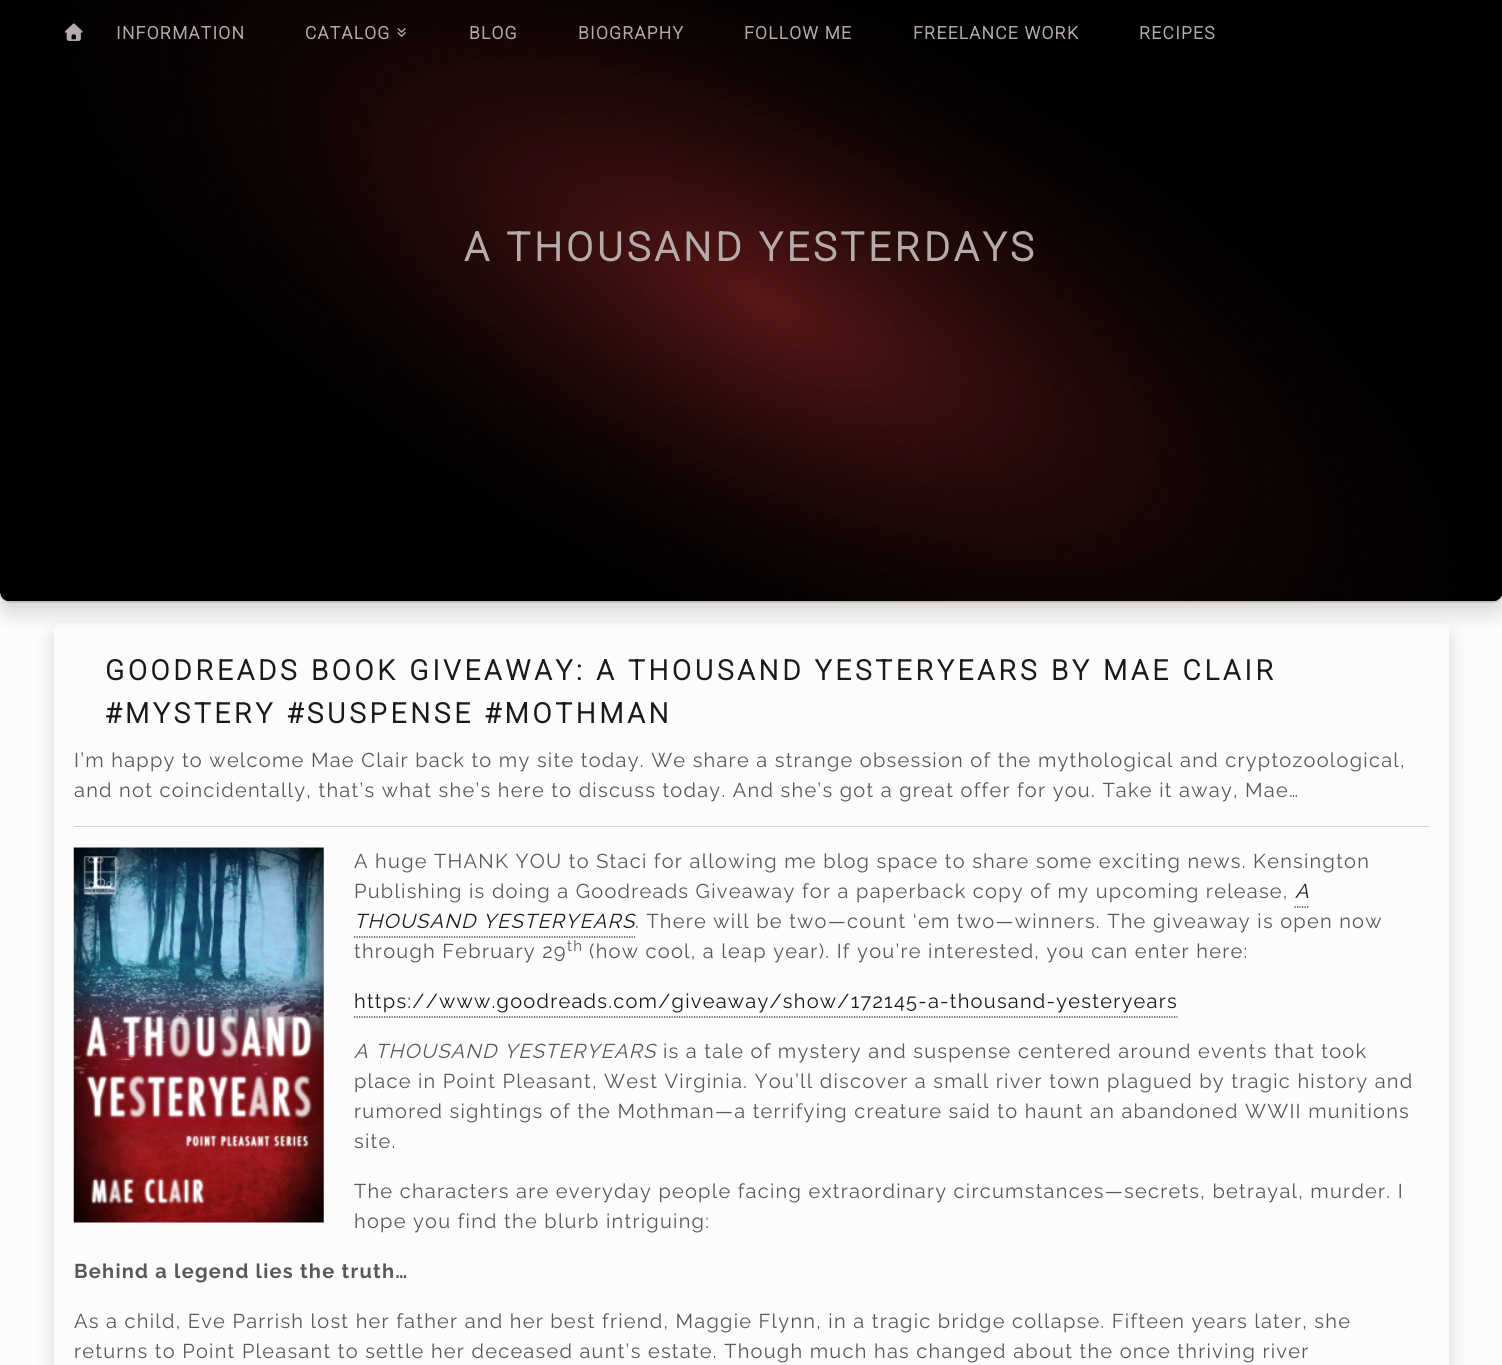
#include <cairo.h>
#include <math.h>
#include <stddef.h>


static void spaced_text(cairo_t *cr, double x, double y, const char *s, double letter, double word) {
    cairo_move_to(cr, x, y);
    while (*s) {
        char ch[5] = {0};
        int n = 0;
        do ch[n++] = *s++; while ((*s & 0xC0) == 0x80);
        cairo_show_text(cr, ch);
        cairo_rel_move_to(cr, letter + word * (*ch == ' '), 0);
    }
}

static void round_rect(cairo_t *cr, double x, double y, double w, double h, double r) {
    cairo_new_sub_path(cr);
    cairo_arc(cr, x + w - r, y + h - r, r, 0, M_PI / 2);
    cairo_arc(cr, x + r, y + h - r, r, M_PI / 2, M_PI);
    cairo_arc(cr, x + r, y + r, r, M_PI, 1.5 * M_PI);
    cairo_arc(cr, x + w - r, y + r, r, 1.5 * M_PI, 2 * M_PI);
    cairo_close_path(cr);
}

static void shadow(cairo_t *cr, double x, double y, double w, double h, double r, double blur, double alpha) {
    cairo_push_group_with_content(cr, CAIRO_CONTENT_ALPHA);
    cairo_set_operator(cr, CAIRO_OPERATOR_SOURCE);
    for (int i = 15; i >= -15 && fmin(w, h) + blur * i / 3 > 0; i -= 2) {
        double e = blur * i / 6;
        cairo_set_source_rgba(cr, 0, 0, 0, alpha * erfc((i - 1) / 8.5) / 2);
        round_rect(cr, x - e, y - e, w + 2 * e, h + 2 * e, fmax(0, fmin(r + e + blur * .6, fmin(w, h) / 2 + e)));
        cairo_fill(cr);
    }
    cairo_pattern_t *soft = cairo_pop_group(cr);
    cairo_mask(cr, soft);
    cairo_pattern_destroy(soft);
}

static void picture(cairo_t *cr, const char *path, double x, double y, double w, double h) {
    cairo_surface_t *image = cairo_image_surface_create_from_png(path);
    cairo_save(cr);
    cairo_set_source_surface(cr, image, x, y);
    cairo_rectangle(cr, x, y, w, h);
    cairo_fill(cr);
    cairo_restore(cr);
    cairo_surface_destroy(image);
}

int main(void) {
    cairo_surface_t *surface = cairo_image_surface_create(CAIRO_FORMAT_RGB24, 1502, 1365);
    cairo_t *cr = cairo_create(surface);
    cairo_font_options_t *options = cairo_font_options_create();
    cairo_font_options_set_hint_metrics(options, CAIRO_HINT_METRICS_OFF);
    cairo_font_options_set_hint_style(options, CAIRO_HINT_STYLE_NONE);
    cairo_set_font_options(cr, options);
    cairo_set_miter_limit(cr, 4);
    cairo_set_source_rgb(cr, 0.992, 0.988, 0.984);
    cairo_paint(cr);
    cairo_set_source_rgb(cr, 0, 0, 0);
    shadow(cr, 0, 10, 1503, 603, 10, 10, 0.15);
    picture(cr, "img3.png", 0, 0, 1502, 602);
    cairo_save(cr);
    cairo_set_fill_rule(cr, CAIRO_FILL_RULE_EVEN_ODD);
    cairo_new_path(cr);
    cairo_move_to(cr, 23, 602);
    cairo_line_to(cr, 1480, 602);
    cairo_line_to(cr, 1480, 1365);
    cairo_line_to(cr, 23, 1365);
    cairo_close_path(cr);
    cairo_move_to(cr, 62, 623);
    cairo_line_to(cr, 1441, 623);
    cairo_curve_to(cr, 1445.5, 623, 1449, 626.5, 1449, 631);
    cairo_line_to(cr, 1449, 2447);
    cairo_curve_to(cr, 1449, 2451.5, 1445.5, 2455, 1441, 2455);
    cairo_line_to(cr, 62, 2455);
    cairo_curve_to(cr, 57.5, 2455, 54, 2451.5, 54, 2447);
    cairo_line_to(cr, 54, 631);
    cairo_curve_to(cr, 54, 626.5, 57.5, 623, 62, 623);
    cairo_close_path(cr);
    cairo_clip(cr);
    shadow(cr, 54, 633, 1395, 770, 8, 10, 0.15);
    cairo_restore(cr);
    cairo_set_source_rgba(cr, 0, 0, 0, 0.1);
    cairo_new_path(cr);
    cairo_move_to(cr, 0, 0);
    cairo_line_to(cr, 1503, 0);
    cairo_line_to(cr, 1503, 593);
    cairo_curve_to(cr, 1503, 598.5, 1498.5, 603, 1493, 603);
    cairo_line_to(cr, 10, 603);
    cairo_curve_to(cr, 4.5, 603, 0, 598.5, 0, 593);
    cairo_close_path(cr);
    cairo_fill(cr);
    picture(cr, "img1.png", 65, 23, 18, 18);
    cairo_select_font_face(cr, "Roboto", CAIRO_FONT_SLANT_NORMAL, CAIRO_FONT_WEIGHT_BOLD);
    cairo_set_font_size(cr, 17.5);
    cairo_set_source_rgb(cr, 0.71, 0.671, 0.671);
    spaced_text(cr, 116, 39, "INFORMATION", 1.25, 0);
    spaced_text(cr, 305, 39, "CATALOG", 1.25, 0);
    picture(cr, "img2.png", 397, 28, 9, 9);
    spaced_text(cr, 469, 39, "BLOG", 1.25, 0);
    spaced_text(cr, 578, 39, "BIOGRAPHY", 1.25, 0);
    spaced_text(cr, 744, 39, "FOLLOW ME", 1.25, 0);
    spaced_text(cr, 913, 39, "FREELANCE WORK", 1.25, 0);
    spaced_text(cr, 1139, 39, "RECIPES", 1.25, 0);
    cairo_set_font_size(cr, 40);
    spaced_text(cr, 464, 261, "A THOUSAND YESTERDAYS", 3.75, 0);
    cairo_set_font_size(cr, 28);
    cairo_set_source_rgb(cr, 0.102, 0.102, 0.102);
    spaced_text(cr, 105, 680, "GOODREADS BOOK GIVEAWAY: A THOUSAND YESTERYEARS BY MAE CLAIR", 3.75, 0);
    spaced_text(cr, 105, 723, "#MYSTERY #SUSPENSE #MOTHMAN", 3.75, 0);
    cairo_select_font_face(cr, "Raleway", CAIRO_FONT_SLANT_NORMAL, CAIRO_FONT_WEIGHT_NORMAL);
    cairo_set_font_size(cr, 20);
    cairo_set_source_rgb(cr, 0.333, 0.349, 0.361);
    spaced_text(cr, 74, 767, "I’m happy to welcome Mae Clair back to my site today. We share a strange obsession of the mythological and cryptozoological,", 1.25, 0);
    spaced_text(cr, 74, 797, "and not coincidentally, that’s what she’s here to discuss today. And she’s got a great offer for you. Take it away, Mae…", 1.25, 0);
    cairo_set_source_rgb(cr, 0.827, 0.827, 0.827);
    cairo_rectangle(cr, 74, 826, 1355, 1);
    cairo_fill(cr);
    picture(cr, "img4.png", 73, 847, 251, 376);
    cairo_set_source_rgb(cr, 0.333, 0.349, 0.361);
    spaced_text(cr, 354, 868, "A huge THANK YOU to Staci for allowing me blog space to share some exciting news. Kensington", 1.25, 0);
    spaced_text(cr, 354, 898, "Publishing is doing a Goodreads Giveaway for a paperback copy of my upcoming release,", 1.25, 0);
    cairo_select_font_face(cr, "Raleway", CAIRO_FONT_SLANT_ITALIC, CAIRO_FONT_WEIGHT_NORMAL);
    cairo_set_source_rgb(cr, 0.102, 0.102, 0.102);
    spaced_text(cr, 1295, 898, "A", 1.25, 0);
    cairo_new_path(cr);
    cairo_move_to(cr, 1294.5, 907);
    cairo_line_to(cr, 1309.5, 907);
    cairo_set_line_width(cr, 1.2);
    cairo_set_dash(cr, (double[]){1.25, 1.25}, 2, 0);
    cairo_stroke(cr);
    spaced_text(cr, 354, 928, "THOUSAND YESTERYEARS", 1.25, 0);
    cairo_new_path(cr);
    cairo_move_to(cr, 354, 937);
    cairo_line_to(cr, 635, 937);
    cairo_stroke(cr);
    cairo_select_font_face(cr, "Raleway", CAIRO_FONT_SLANT_NORMAL, CAIRO_FONT_WEIGHT_NORMAL);
    cairo_set_source_rgb(cr, 0.333, 0.349, 0.361);
    spaced_text(cr, 635, 928, ". There will be two—count ‘em two—winners. The giveaway is open now", 1.25, 0);
    spaced_text(cr, 354, 958, "through February 29", 1.25, 0);
    cairo_set_font_size(cr, 15);
    spaced_text(cr, 567, 951, "th", 1.25, 0);
    cairo_set_font_size(cr, 20);
    spaced_text(cr, 589, 958, "(how cool, a leap year). If you’re interested, you can enter here:", 1.25, 0);
    cairo_set_source_rgb(cr, 0.102, 0.102, 0.102);
    spaced_text(cr, 354, 1008, "https://www.goodreads.com/giveaway/show/172145-a-thousand-yesteryears", 1.25, 0);
    cairo_new_path(cr);
    cairo_move_to(cr, 354, 1017);
    cairo_line_to(cr, 1177.5, 1017);
    cairo_stroke(cr);
    cairo_select_font_face(cr, "Raleway", CAIRO_FONT_SLANT_ITALIC, CAIRO_FONT_WEIGHT_NORMAL);
    cairo_set_source_rgb(cr, 0.333, 0.349, 0.361);
    spaced_text(cr, 354, 1058, "A THOUSAND YESTERYEARS", 1.25, 0);
    cairo_select_font_face(cr, "Raleway", CAIRO_FONT_SLANT_NORMAL, CAIRO_FONT_WEIGHT_NORMAL);
    spaced_text(cr, 663, 1058, "is a tale of mystery and suspense centered around events that took", 1.25, 0);
    spaced_text(cr, 354, 1088, "place in Point Pleasant, West Virginia. You’ll discover a small river town plagued by tragic history and", 1.25, 0);
    spaced_text(cr, 354, 1118, "rumored sightings of the Mothman—a terrifying creature said to haunt an abandoned WWII munitions", 1.25, 0);
    spaced_text(cr, 354, 1148, "site.", 1.25, 0);
    spaced_text(cr, 354, 1198, "The characters are everyday people facing extraordinary circumstances—secrets, betrayal, murder. I", 1.25, 0);
    spaced_text(cr, 354, 1228, "hope you find the blurb intriguing:", 1.25, 0);
    cairo_select_font_face(cr, "Raleway", CAIRO_FONT_SLANT_NORMAL, CAIRO_FONT_WEIGHT_BOLD);
    spaced_text(cr, 74, 1278, "Behind a legend lies the truth…", 1.25, 0);
    cairo_select_font_face(cr, "Raleway", CAIRO_FONT_SLANT_NORMAL, CAIRO_FONT_WEIGHT_NORMAL);
    spaced_text(cr, 74, 1328, "As a child, Eve Parrish lost her father and her best friend, Maggie Flynn, in a tragic bridge collapse. Fifteen years later, she", 1.25, 0);
    spaced_text(cr, 74, 1358, "returns to Point Pleasant to settle her deceased aunt’s estate. Though much has changed about the once thriving river", 1.25, 0);
    cairo_surface_write_to_png(surface, "page.png");
    cairo_font_options_destroy(options);
    cairo_destroy(cr);
    cairo_surface_destroy(surface);
    return 0;
}
